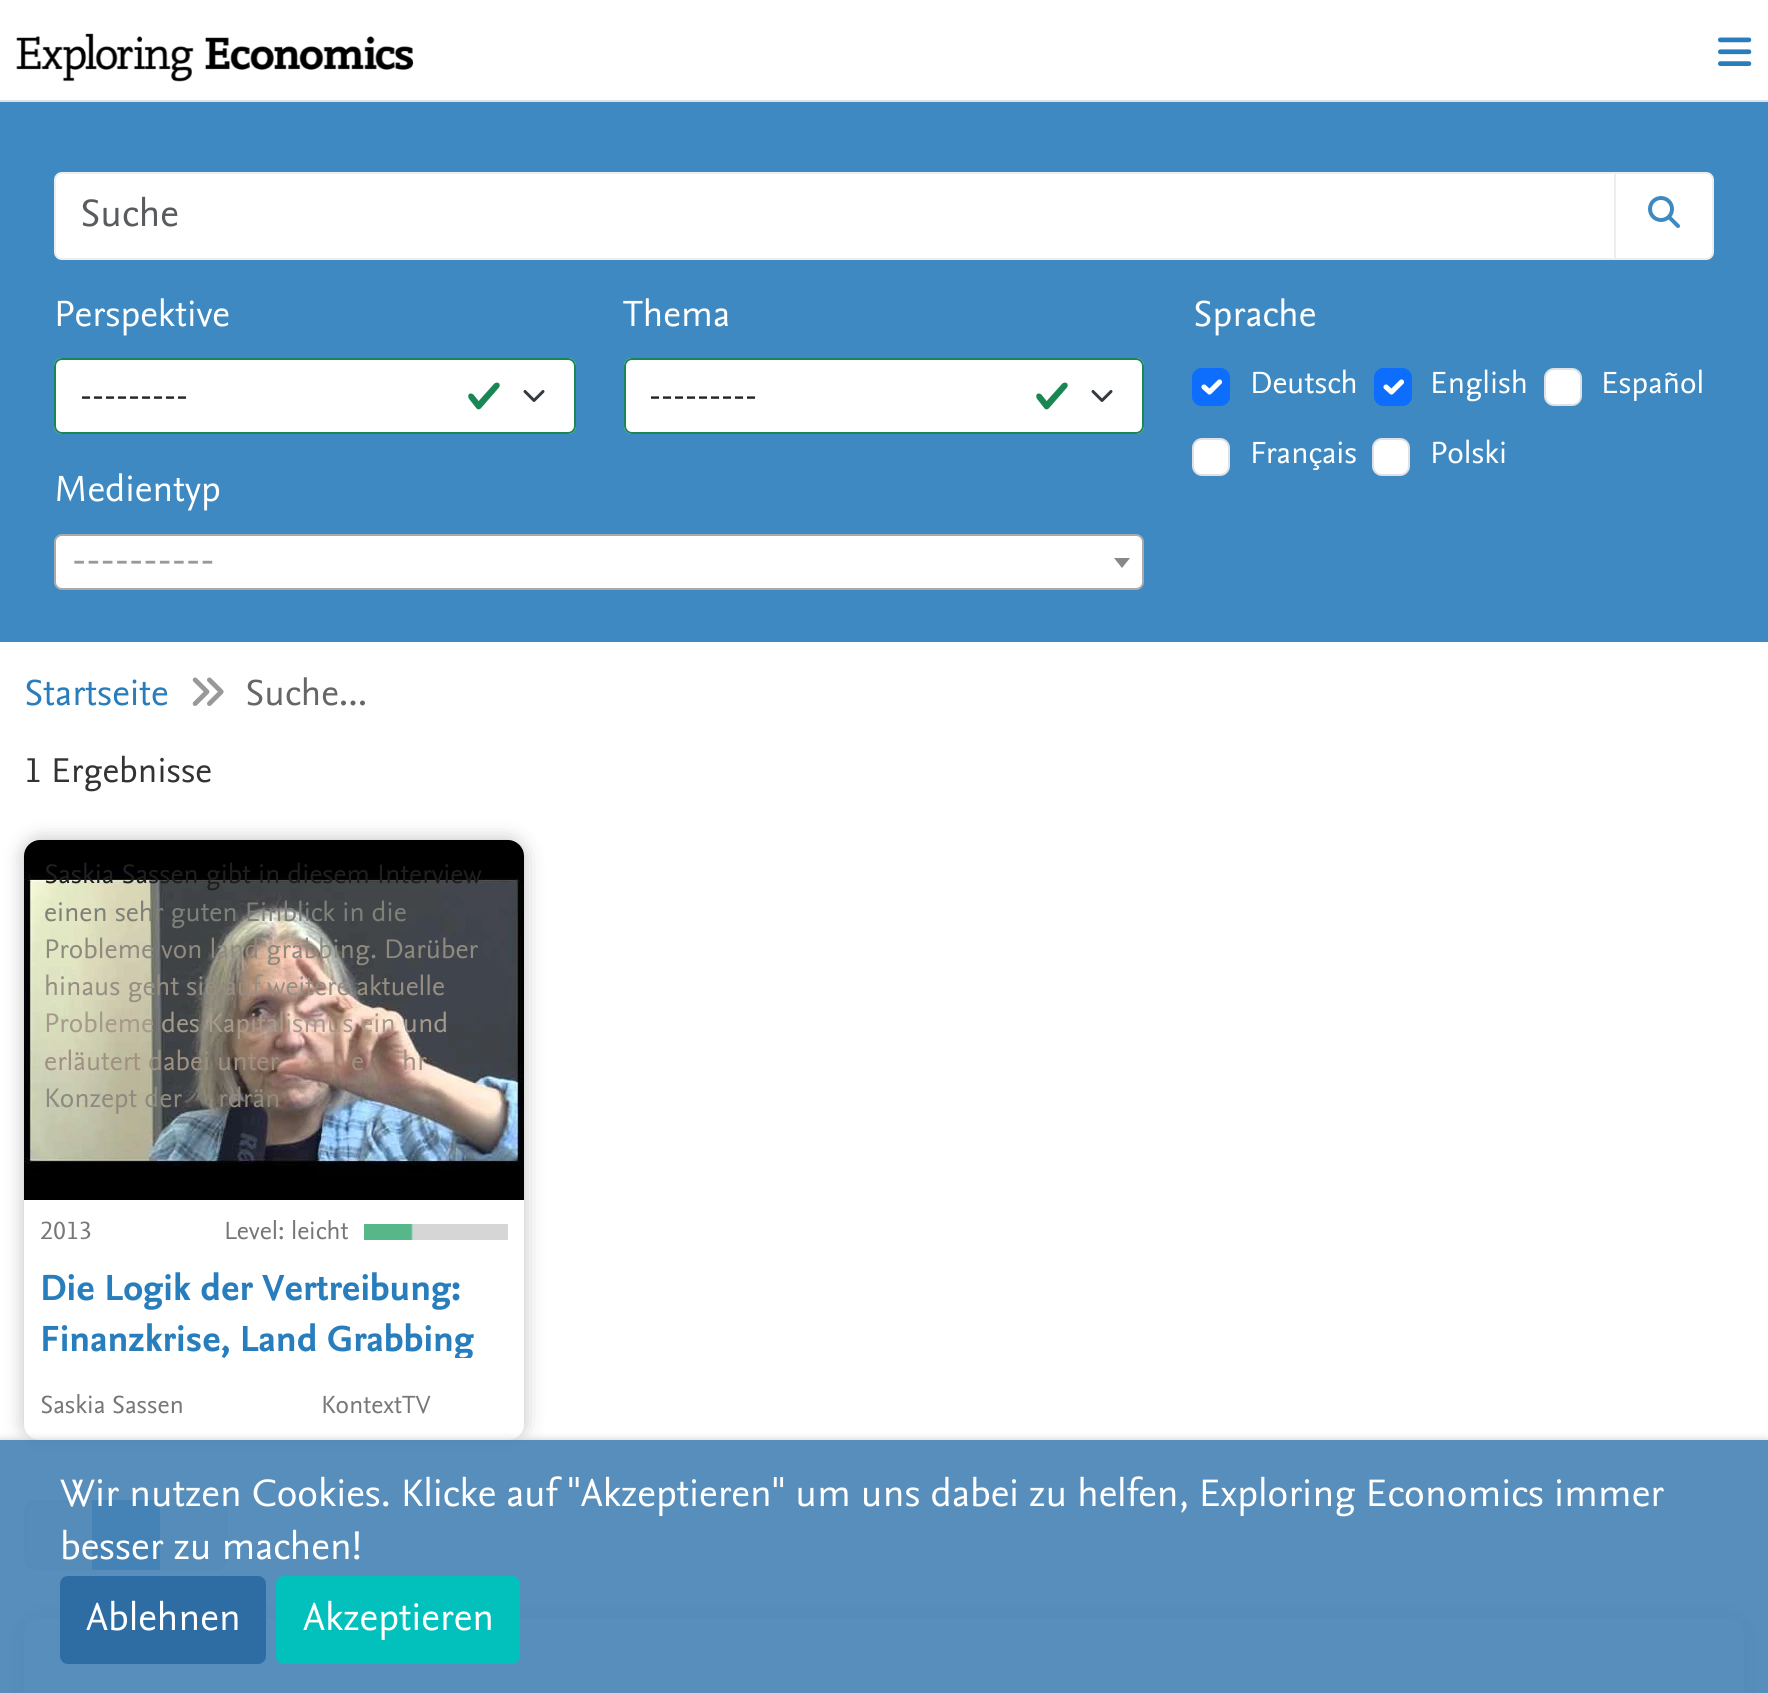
#include <cairo.h>
#include <math.h>
#include <stddef.h>


static void round_rect(cairo_t *cr, double x, double y, double w, double h, double r) {
    cairo_new_sub_path(cr);
    cairo_arc(cr, x + w - r, y + h - r, r, 0, M_PI / 2);
    cairo_arc(cr, x + r, y + h - r, r, M_PI / 2, M_PI);
    cairo_arc(cr, x + r, y + r, r, M_PI, 1.5 * M_PI);
    cairo_arc(cr, x + w - r, y + r, r, 1.5 * M_PI, 2 * M_PI);
    cairo_close_path(cr);
}

static void shadow(cairo_t *cr, double x, double y, double w, double h, double r, double blur, double alpha) {
    cairo_push_group_with_content(cr, CAIRO_CONTENT_ALPHA);
    cairo_set_operator(cr, CAIRO_OPERATOR_SOURCE);
    for (int i = 15; i >= -15 && fmin(w, h) + blur * i / 3 > 0; i -= 2) {
        double e = blur * i / 6;
        cairo_set_source_rgba(cr, 0, 0, 0, alpha * erfc((i - 1) / 8.5) / 2);
        round_rect(cr, x - e, y - e, w + 2 * e, h + 2 * e, fmax(0, fmin(r + e + blur * .6, fmin(w, h) / 2 + e)));
        cairo_fill(cr);
    }
    cairo_pattern_t *soft = cairo_pop_group(cr);
    cairo_mask(cr, soft);
    cairo_pattern_destroy(soft);
}

static void picture(cairo_t *cr, const char *path, double x, double y, double w, double h) {
    cairo_surface_t *image = cairo_image_surface_create_from_png(path);
    cairo_save(cr);
    cairo_set_source_surface(cr, image, x, y);
    cairo_rectangle(cr, x, y, w, h);
    cairo_fill(cr);
    cairo_restore(cr);
    cairo_surface_destroy(image);
}

int main(void) {
    cairo_surface_t *surface = cairo_image_surface_create(CAIRO_FORMAT_RGB24, 1768, 1693);
    cairo_t *cr = cairo_create(surface);
    cairo_font_options_t *options = cairo_font_options_create();
    cairo_font_options_set_hint_metrics(options, CAIRO_HINT_METRICS_OFF);
    cairo_font_options_set_hint_style(options, CAIRO_HINT_STYLE_NONE);
    cairo_set_font_options(cr, options);
    cairo_set_miter_limit(cr, 4);
    cairo_set_source_rgb(cr, 1, 1, 1);
    cairo_paint(cr);
    cairo_set_source_rgb(cr, 0.871, 0.886, 0.902);
    cairo_rectangle(cr, 0, 100, 1768, 2);
    cairo_fill(cr);
    picture(cr, "img1.png", 16, 33, 398, 49);
    picture(cr, "img2.png", 1718, 37, 34, 29);
    cairo_set_source_rgb(cr, 0.243, 0.537, 0.757);
    cairo_rectangle(cr, 0, 102, 1768, 540);
    cairo_fill(cr);
    cairo_set_source_rgb(cr, 1, 1, 1);
    cairo_new_path(cr);
    cairo_move_to(cr, 62, 173);
    cairo_line_to(cr, 1615, 173);
    cairo_line_to(cr, 1615, 259);
    cairo_line_to(cr, 62, 259);
    cairo_curve_to(cr, 58, 259, 55, 256, 55, 252);
    cairo_line_to(cr, 55, 180);
    cairo_curve_to(cr, 55, 176, 58, 173, 62, 173);
    cairo_close_path(cr);
    cairo_fill_preserve(cr);
    cairo_set_source_rgb(cr, 0.933, 0.933, 0.933);
    cairo_stroke(cr);
    cairo_select_font_face(cr, "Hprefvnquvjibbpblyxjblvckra", CAIRO_FONT_SLANT_NORMAL, CAIRO_FONT_WEIGHT_NORMAL);
    cairo_set_font_size(cr, 40);
    cairo_set_source_rgb(cr, 0.349, 0.361, 0.373);
    cairo_move_to(cr, 80, 226);
    cairo_show_text(cr, "Suche");
    cairo_set_source_rgb(cr, 1, 1, 1);
    cairo_new_path(cr);
    cairo_move_to(cr, 1615, 173);
    cairo_line_to(cr, 1706, 173);
    cairo_curve_to(cr, 1710, 173, 1713, 176, 1713, 180);
    cairo_line_to(cr, 1713, 252);
    cairo_curve_to(cr, 1713, 256, 1710, 259, 1706, 259);
    cairo_line_to(cr, 1615, 259);
    cairo_close_path(cr);
    cairo_fill_preserve(cr);
    cairo_set_source_rgb(cr, 0.933, 0.933, 0.933);
    cairo_stroke(cr);
    picture(cr, "img3.png", 1648, 196, 32, 32);
    cairo_set_font_size(cr, 38);
    cairo_set_source_rgb(cr, 1, 1, 1);
    cairo_move_to(cr, 54, 326);
    cairo_show_text(cr, "Perspektive");
    round_rect(cr, 54, 358, 522, 76, 8);
    cairo_fill(cr);
    picture(cr, "img4.png", 468, 382, 32, 28);
    cairo_new_path(cr);
    cairo_move_to(cr, 525, 391.5);
    cairo_line_to(cr, 534, 400.5);
    cairo_line_to(cr, 543, 391.5);
    cairo_set_source_rgb(cr, 0.204, 0.227, 0.251);
    cairo_set_line_width(cr, 3);
    cairo_set_line_cap(cr, CAIRO_LINE_CAP_ROUND);
    cairo_set_line_join(cr, CAIRO_LINE_JOIN_ROUND);
    cairo_stroke(cr);
    round_rect(cr, 55, 359, 520, 74, 7);
    cairo_set_source_rgb(cr, 0.098, 0.529, 0.329);
    cairo_set_line_width(cr, 2);
    cairo_set_line_cap(cr, CAIRO_LINE_CAP_BUTT);
    cairo_set_line_join(cr, CAIRO_LINE_JOIN_MITER);
    cairo_stroke(cr);
    cairo_set_font_size(cr, 32);
    cairo_set_source_rgb(cr, 0.129, 0.145, 0.161);
    cairo_move_to(cr, 80, 405);
    cairo_show_text(cr, "---------");
    cairo_set_font_size(cr, 38);
    cairo_set_source_rgb(cr, 1, 1, 1);
    cairo_move_to(cr, 623, 326);
    cairo_show_text(cr, "Thema");
    round_rect(cr, 624, 358, 520, 76, 8);
    cairo_fill(cr);
    picture(cr, "img4.png", 1036, 382, 32, 28);
    cairo_new_path(cr);
    cairo_move_to(cr, 1093, 391.5);
    cairo_line_to(cr, 1102, 400.5);
    cairo_line_to(cr, 1111, 391.5);
    cairo_set_source_rgb(cr, 0.204, 0.227, 0.251);
    cairo_set_line_width(cr, 3);
    cairo_set_line_cap(cr, CAIRO_LINE_CAP_ROUND);
    cairo_set_line_join(cr, CAIRO_LINE_JOIN_ROUND);
    cairo_stroke(cr);
    round_rect(cr, 625, 359, 518, 74, 7);
    cairo_set_source_rgb(cr, 0.098, 0.529, 0.329);
    cairo_set_line_width(cr, 2);
    cairo_set_line_cap(cr, CAIRO_LINE_CAP_BUTT);
    cairo_set_line_join(cr, CAIRO_LINE_JOIN_MITER);
    cairo_stroke(cr);
    cairo_set_font_size(cr, 32);
    cairo_set_source_rgb(cr, 0.129, 0.145, 0.161);
    cairo_move_to(cr, 649, 405);
    cairo_show_text(cr, "---------");
    cairo_set_font_size(cr, 38);
    cairo_set_source_rgb(cr, 1, 1, 1);
    cairo_move_to(cr, 54, 501);
    cairo_show_text(cr, "Medientyp");
    round_rect(cr, 55, 535, 1088, 54, 7);
    cairo_fill_preserve(cr);
    cairo_set_source_rgb(cr, 0.667, 0.667, 0.667);
    cairo_stroke(cr);
    cairo_set_source_rgb(cr, 0.6, 0.6, 0.6);
    cairo_move_to(cr, 72, 571);
    cairo_show_text(cr, "----------");
    cairo_set_source_rgb(cr, 0.533, 0.533, 0.533);
    cairo_new_path(cr);
    cairo_move_to(cr, 1114, 558);
    cairo_line_to(cr, 1130, 558);
    cairo_line_to(cr, 1122, 568);
    cairo_close_path(cr);
    cairo_fill(cr);
    cairo_set_source_rgb(cr, 1, 1, 1);
    cairo_move_to(cr, 1193, 326);
    cairo_show_text(cr, "Sprache");
    cairo_set_source_rgb(cr, 0.051, 0.431, 0.992);
    round_rect(cr, 1192, 368, 38, 38, 10);
    cairo_fill(cr);
    cairo_new_path(cr);
    cairo_move_to(cr, 1204, 387);
    cairo_line_to(cr, 1209.5, 392);
    cairo_line_to(cr, 1219.5, 382);
    cairo_set_source_rgb(cr, 1, 1, 1);
    cairo_set_line_width(cr, 5.1);
    cairo_set_line_cap(cr, CAIRO_LINE_CAP_ROUND);
    cairo_set_line_join(cr, CAIRO_LINE_JOIN_ROUND);
    cairo_stroke(cr);
    round_rect(cr, 1193, 369, 36, 36, 9);
    cairo_set_source_rgb(cr, 0.051, 0.431, 0.992);
    cairo_set_line_width(cr, 2);
    cairo_set_line_cap(cr, CAIRO_LINE_CAP_BUTT);
    cairo_set_line_join(cr, CAIRO_LINE_JOIN_MITER);
    cairo_stroke(cr);
    cairo_set_font_size(cr, 32);
    cairo_set_source_rgb(cr, 1, 1, 1);
    cairo_move_to(cr, 1250, 393);
    cairo_show_text(cr, "Deutsch");
    cairo_set_source_rgb(cr, 0.051, 0.431, 0.992);
    round_rect(cr, 1374, 368, 38, 38, 10);
    cairo_fill(cr);
    cairo_new_path(cr);
    cairo_move_to(cr, 1386, 387);
    cairo_line_to(cr, 1391.5, 392);
    cairo_line_to(cr, 1401.5, 382);
    cairo_set_source_rgb(cr, 1, 1, 1);
    cairo_set_line_width(cr, 5.1);
    cairo_set_line_cap(cr, CAIRO_LINE_CAP_ROUND);
    cairo_set_line_join(cr, CAIRO_LINE_JOIN_ROUND);
    cairo_stroke(cr);
    round_rect(cr, 1375, 369, 36, 36, 9);
    cairo_set_source_rgb(cr, 0.051, 0.431, 0.992);
    cairo_set_line_width(cr, 2);
    cairo_set_line_cap(cr, CAIRO_LINE_CAP_BUTT);
    cairo_set_line_join(cr, CAIRO_LINE_JOIN_MITER);
    cairo_stroke(cr);
    cairo_set_source_rgb(cr, 1, 1, 1);
    cairo_move_to(cr, 1430, 393);
    cairo_show_text(cr, "English");
    round_rect(cr, 1545, 369, 36, 36, 9);
    cairo_fill_preserve(cr);
    cairo_set_source_rgb(cr, 0.871, 0.886, 0.902);
    cairo_stroke(cr);
    cairo_set_source_rgb(cr, 1, 1, 1);
    cairo_move_to(cr, 1601, 393);
    cairo_show_text(cr, "Español");
    round_rect(cr, 1193, 439, 36, 36, 9);
    cairo_fill_preserve(cr);
    cairo_set_source_rgb(cr, 0.871, 0.886, 0.902);
    cairo_stroke(cr);
    cairo_set_source_rgb(cr, 1, 1, 1);
    cairo_move_to(cr, 1250, 463);
    cairo_show_text(cr, "Français");
    round_rect(cr, 1373, 439, 36, 36, 9);
    cairo_fill_preserve(cr);
    cairo_set_source_rgb(cr, 0.871, 0.886, 0.902);
    cairo_stroke(cr);
    cairo_set_source_rgb(cr, 1, 1, 1);
    cairo_move_to(cr, 1430, 463);
    cairo_show_text(cr, "Polski");
    cairo_set_font_size(cr, 38);
    cairo_set_source_rgb(cr, 0.157, 0.49, 0.737);
    cairo_move_to(cr, 24, 705);
    cairo_show_text(cr, "Startseite");
    picture(cr, "img5.png", 192, 677, 32, 29);
    cairo_set_source_rgb(cr, 0.4, 0.4, 0.4);
    cairo_move_to(cr, 245, 705);
    cairo_show_text(cr, "Suche...");
    cairo_set_font_size(cr, 36);
    cairo_set_source_rgb(cr, 0.2, 0.2, 0.2);
    cairo_move_to(cr, 24, 782);
    cairo_show_text(cr, "1 Ergebnisse");
    cairo_set_source_rgb(cr, 0, 0, 0);
    shadow(cr, 24, 840, 500, 600, 16, 10, 0.25);
    cairo_set_source_rgb(cr, 1, 1, 1);
    round_rect(cr, 24, 840, 500, 600, 16);
    cairo_fill(cr);
    picture(cr, "img6.png", 24, 840, 500, 360);
    cairo_set_font_size(cr, 28);
    cairo_set_source_rgb(cr, 0.122, 0.122, 0.118);
    cairo_move_to(cr, 44, 883);
    cairo_show_text(cr, "Saskia Sassen gibt in diesem Interview");
    cairo_set_source_rgb(cr, 0.498, 0.506, 0.471);
    cairo_move_to(cr, 44, 921);
    cairo_show_text(cr, "einen sehr guten Einblick in die");
    cairo_set_source_rgb(cr, 0.557, 0.541, 0.498);
    cairo_move_to(cr, 44, 958);
    cairo_show_text(cr, "Probleme von land grabbing. Darüber");
    cairo_set_source_rgb(cr, 0.588, 0.557, 0.51);
    cairo_move_to(cr, 44, 995);
    cairo_show_text(cr, "hinaus geht sie auf weitere aktuelle");
    cairo_set_source_rgb(cr, 0.647, 0.6, 0.541);
    cairo_move_to(cr, 44, 1032);
    cairo_show_text(cr, "Probleme des Kapitalismus ein und");
    cairo_set_source_rgb(cr, 0.627, 0.565, 0.506);
    cairo_move_to(cr, 44, 1070);
    cairo_show_text(cr, "erläutert dabei unter");
    cairo_move_to(cr, 351, 1070);
    cairo_show_text(cr, "e");
    cairo_move_to(cr, 402, 1070);
    cairo_show_text(cr, "hr");
    cairo_set_source_rgb(cr, 0.557, 0.541, 0.498);
    cairo_move_to(cr, 44, 1107);
    cairo_show_text(cr, "Konzept der");
    cairo_move_to(cr, 218, 1107);
    cairo_show_text(cr, "rdrän");
    cairo_set_font_size(cr, 26);
    cairo_set_source_rgb(cr, 0.467, 0.467, 0.467);
    cairo_move_to(cr, 40, 1239);
    cairo_show_text(cr, "2013");
    picture(cr, "img7.png", 364, 1224, 144, 16);
    cairo_move_to(cr, 224, 1239);
    cairo_show_text(cr, "Level: leicht");
    cairo_select_font_face(cr, "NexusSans", CAIRO_FONT_SLANT_NORMAL, CAIRO_FONT_WEIGHT_NORMAL);
    cairo_set_font_size(cr, 38);
    cairo_set_source_rgb(cr, 0.157, 0.49, 0.737);
    cairo_move_to(cr, 40, 1300);
    cairo_show_text(cr, "Die Logik der Vertreibung:");
    cairo_save(cr);
    cairo_rectangle(cr, 24, 1266, 500, 92);
    cairo_clip(cr);
    cairo_move_to(cr, 40, 1351);
    cairo_show_text(cr, "Finanzkrise, Land Grabbing");
    cairo_restore(cr);
    cairo_select_font_face(cr, "Hprefvnquvjibbpblyxjblvckra", CAIRO_FONT_SLANT_NORMAL, CAIRO_FONT_WEIGHT_NORMAL);
    cairo_set_font_size(cr, 26);
    cairo_set_source_rgb(cr, 0.467, 0.467, 0.467);
    cairo_move_to(cr, 40, 1413);
    cairo_show_text(cr, "Saskia Sassen");
    cairo_move_to(cr, 321, 1413);
    cairo_show_text(cr, "KontextTV");
    cairo_set_source_rgb(cr, 0.914, 0.925, 0.937);
    cairo_new_path(cr);
    cairo_move_to(cr, 36, 1501);
    cairo_line_to(cr, 93, 1501);
    cairo_line_to(cr, 93, 1569);
    cairo_line_to(cr, 36, 1569);
    cairo_curve_to(cr, 30, 1569, 25, 1564, 25, 1558);
    cairo_line_to(cr, 25, 1512);
    cairo_curve_to(cr, 25, 1506, 30, 1501, 36, 1501);
    cairo_close_path(cr);
    cairo_fill_preserve(cr);
    cairo_set_source_rgb(cr, 0.871, 0.886, 0.902);
    cairo_stroke(cr);
    cairo_set_source_rgb(cr, 0.914, 0.925, 0.937);
    cairo_new_path(cr);
    cairo_move_to(cr, 159, 1501);
    cairo_line_to(cr, 216, 1501);
    cairo_curve_to(cr, 222, 1501, 227, 1506, 227, 1512);
    cairo_line_to(cr, 227, 1558);
    cairo_curve_to(cr, 227, 1564, 222, 1569, 216, 1569);
    cairo_line_to(cr, 159, 1569);
    cairo_close_path(cr);
    cairo_fill_preserve(cr);
    cairo_set_source_rgb(cr, 0.871, 0.886, 0.902);
    cairo_stroke(cr);
    cairo_set_source_rgb(cr, 0.243, 0.537, 0.757);
    cairo_rectangle(cr, 92, 1500, 68, 70);
    cairo_fill(cr);
    cairo_set_source_rgb(cr, 0, 0, 0);
    shadow(cr, 24, 1618, 1720, 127, 16, 12, 0.25);
    cairo_set_source_rgb(cr, 1, 1, 1);
    round_rect(cr, 24, 1618, 1720, 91, 16);
    cairo_fill(cr);
    cairo_save(cr);
    cairo_rectangle(cr, 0, 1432, 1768, 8);
    cairo_clip(cr);
    cairo_set_source_rgb(cr, 0.8, 0.8, 0.8);
    shadow(cr, 0, 1440, 1768, 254, 0, 4, 1);
    cairo_restore(cr);
    cairo_set_source_rgba(cr, 0.275, 0.51, 0.706, 0.9);
    cairo_rectangle(cr, 0, 1440, 1768, 253);
    cairo_fill(cr);
    cairo_set_font_size(cr, 40);
    cairo_set_source_rgb(cr, 1, 1, 1);
    cairo_move_to(cr, 60, 1506);
    cairo_show_text(cr, "Wir nutzen Cookies. Klicke auf \"Akzeptieren\" um uns dabei zu helfen, Exploring Economics immer");
    cairo_move_to(cr, 60, 1559);
    cairo_show_text(cr, "besser zu machen!");
    cairo_set_source_rgb(cr, 0.18, 0.427, 0.643);
    round_rect(cr, 60, 1576, 206, 88, 8);
    cairo_fill(cr);
    cairo_set_source_rgb(cr, 1, 1, 1);
    cairo_move_to(cr, 86, 1630);
    cairo_show_text(cr, "Ablehnen");
    cairo_set_source_rgb(cr, 0.008, 0.757, 0.737);
    round_rect(cr, 276, 1576, 244, 88, 8);
    cairo_fill(cr);
    cairo_set_source_rgb(cr, 1, 1, 1);
    cairo_move_to(cr, 303, 1630);
    cairo_show_text(cr, "Akzeptieren");
    cairo_surface_write_to_png(surface, "page.png");
    cairo_font_options_destroy(options);
    cairo_destroy(cr);
    cairo_surface_destroy(surface);
    return 0;
}
